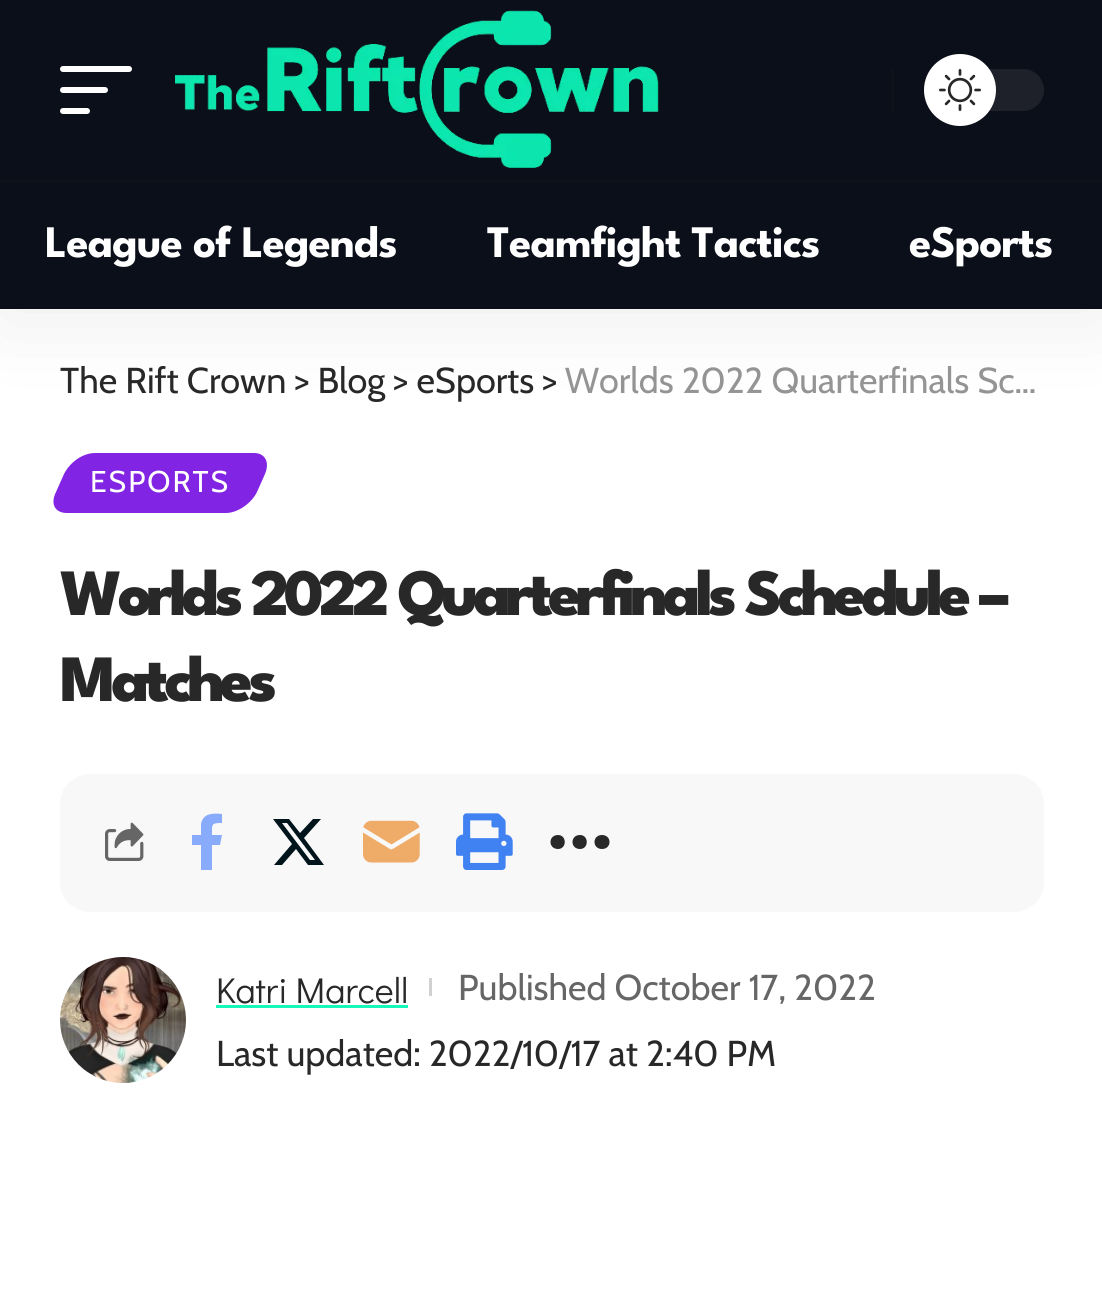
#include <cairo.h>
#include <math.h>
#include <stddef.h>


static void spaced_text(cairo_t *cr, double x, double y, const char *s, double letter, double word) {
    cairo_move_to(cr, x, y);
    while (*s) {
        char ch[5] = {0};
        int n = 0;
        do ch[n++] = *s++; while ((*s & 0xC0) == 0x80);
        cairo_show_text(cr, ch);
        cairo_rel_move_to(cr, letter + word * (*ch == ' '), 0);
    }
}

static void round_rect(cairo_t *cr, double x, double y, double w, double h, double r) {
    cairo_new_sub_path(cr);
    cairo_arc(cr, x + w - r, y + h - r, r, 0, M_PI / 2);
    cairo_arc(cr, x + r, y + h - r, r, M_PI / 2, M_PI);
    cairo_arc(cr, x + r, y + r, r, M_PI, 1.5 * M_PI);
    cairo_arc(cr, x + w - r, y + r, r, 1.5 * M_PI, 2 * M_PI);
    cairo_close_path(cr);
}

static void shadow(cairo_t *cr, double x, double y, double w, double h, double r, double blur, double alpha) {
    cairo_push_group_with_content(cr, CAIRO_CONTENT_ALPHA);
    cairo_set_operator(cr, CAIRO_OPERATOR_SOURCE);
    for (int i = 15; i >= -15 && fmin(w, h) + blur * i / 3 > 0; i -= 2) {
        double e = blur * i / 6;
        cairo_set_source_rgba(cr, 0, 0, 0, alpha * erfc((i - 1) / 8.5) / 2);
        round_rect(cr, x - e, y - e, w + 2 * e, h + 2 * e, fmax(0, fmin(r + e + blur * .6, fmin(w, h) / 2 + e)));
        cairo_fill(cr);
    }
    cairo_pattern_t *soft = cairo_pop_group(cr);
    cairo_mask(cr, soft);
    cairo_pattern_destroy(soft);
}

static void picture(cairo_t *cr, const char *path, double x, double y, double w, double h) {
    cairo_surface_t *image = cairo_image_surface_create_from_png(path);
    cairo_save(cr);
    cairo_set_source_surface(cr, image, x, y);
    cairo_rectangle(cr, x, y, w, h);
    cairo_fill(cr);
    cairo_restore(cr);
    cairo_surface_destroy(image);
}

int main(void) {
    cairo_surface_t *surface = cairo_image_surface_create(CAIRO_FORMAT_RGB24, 1102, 1298);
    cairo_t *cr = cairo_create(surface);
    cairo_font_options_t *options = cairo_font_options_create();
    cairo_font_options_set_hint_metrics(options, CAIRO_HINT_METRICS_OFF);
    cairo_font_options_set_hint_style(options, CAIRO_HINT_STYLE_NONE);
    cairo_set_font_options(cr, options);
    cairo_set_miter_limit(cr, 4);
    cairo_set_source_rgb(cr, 1, 1, 1);
    cairo_paint(cr);
    cairo_set_source_rgb(cr, 0.51, 0.141, 0.89);
    cairo_new_path(cr);
    cairo_move_to(cr, 95, 453);
    cairo_line_to(cr, 254, 453);
    cairo_curve_to(cr, 265, 453, 270, 462, 265, 474);
    cairo_line_to(cr, 257, 492);
    cairo_curve_to(cr, 251, 504, 237, 513, 226, 513);
    cairo_line_to(cr, 67, 513);
    cairo_curve_to(cr, 55, 513, 50, 504, 56, 492);
    cairo_line_to(cr, 64, 474);
    cairo_curve_to(cr, 70, 462, 83, 453, 95, 453);
    cairo_close_path(cr);
    cairo_fill(cr);
    cairo_set_source_rgb(cr, 0, 0, 0);
    shadow(cr, 0, 12, 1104, 309, 0, 45, 0.07);
    cairo_set_source_rgb(cr, 0.043, 0.059, 0.098);
    cairo_rectangle(cr, 0, 0, 1102, 309);
    cairo_fill(cr);
    cairo_set_source_rgb(cr, 1, 1, 1);
    round_rect(cr, 60, 66, 72, 6, 3);
    cairo_fill(cr);
    round_rect(cr, 60, 87, 48, 6, 3);
    cairo_fill(cr);
    round_rect(cr, 60, 108, 30, 6, 3);
    cairo_fill(cr);
    picture(cr, "img1.png", 175, 10, 484, 158);
    cairo_set_source_rgb(cr, 0.059, 0.071, 0.106);
    cairo_rectangle(cr, 891, 69, 3, 42);
    cairo_fill(cr);
    cairo_set_source_rgb(cr, 0.118, 0.129, 0.165);
    round_rect(cr, 924, 69, 120, 42, 21);
    cairo_fill(cr);
    cairo_set_source_rgb(cr, 1, 1, 1);
    cairo_arc(cr, 960, 90, 36, 0, 2 * M_PI);
    cairo_fill(cr);
    picture(cr, "img2.png", 939, 69, 42, 42);
    cairo_set_source_rgb(cr, 0.059, 0.071, 0.106);
    cairo_rectangle(cr, 0, 180, 1102, 3);
    cairo_fill(cr);
    cairo_select_font_face(cr, "League Spartan", CAIRO_FONT_SLANT_NORMAL, CAIRO_FONT_WEIGHT_BOLD);
    cairo_set_font_size(cr, 45);
    cairo_set_source_rgb(cr, 1, 1, 1);
    spaced_text(cr, 45, 257, "League of Legends", -0.9, 0);
    spaced_text(cr, 487, 257, "Teamfight Tactics", -0.9, 0);
    spaced_text(cr, 909, 257, "eSports", -0.9, 0);
    cairo_select_font_face(cr, "Cabin", CAIRO_FONT_SLANT_NORMAL, CAIRO_FONT_WEIGHT_NORMAL);
    cairo_set_font_size(cr, 36);
    cairo_set_source_rgb(cr, 0.157, 0.157, 0.157);
    cairo_move_to(cr, 60, 393);
    cairo_show_text(cr, "The Rift Crown > Blog > eSports >");
    cairo_set_source_rgb(cr, 0.58, 0.58, 0.58);
    cairo_move_to(cr, 565, 393);
    cairo_show_text(cr, "Worlds 2022 Quarterfinals Sc…");
    cairo_set_font_size(cr, 30);
    cairo_set_source_rgb(cr, 1, 1, 1);
    spaced_text(cr, 90, 492, "ESPORTS", 2, 0);
    cairo_select_font_face(cr, "League Spartan ExtraBold", CAIRO_FONT_SLANT_NORMAL, CAIRO_FONT_WEIGHT_NORMAL);
    cairo_set_font_size(cr, 66);
    cairo_set_source_rgb(cr, 0.157, 0.157, 0.157);
    spaced_text(cr, 60, 615, "Worlds 2022 Quarterfinals Schedule –", -5.1, 0);
    spaced_text(cr, 60, 701, "Matches", -5.1, 0);
    cairo_set_source_rgb(cr, 0.969, 0.969, 0.969);
    round_rect(cr, 60, 774, 984, 138, 30);
    cairo_fill(cr);
    picture(cr, "img3.png", 105, 822, 39, 39);
    cairo_set_source_rgb(cr, 0.537, 0.671, 0.988);
    cairo_new_path(cr);
    cairo_move_to(cr, 220, 845);
    cairo_line_to(cr, 222, 835);
    cairo_line_to(cr, 212, 835);
    cairo_curve_to(cr, 212, 824, 211, 823, 222, 823);
    cairo_line_to(cr, 222, 814);
    cairo_curve_to(cr, 213, 813, 203, 813, 201, 824);
    cairo_line_to(cr, 201, 835);
    cairo_line_to(cr, 192, 835);
    cairo_line_to(cr, 192, 845);
    cairo_line_to(cr, 201, 845);
    cairo_line_to(cr, 201, 870);
    cairo_line_to(cr, 212, 870);
    cairo_line_to(cr, 212, 845);
    cairo_close_path(cr);
    cairo_fill(cr);
    cairo_set_source_rgb(cr, 0, 0.082, 0.11);
    cairo_new_path(cr);
    cairo_move_to(cr, 313, 819);
    cairo_line_to(cr, 321, 819);
    cairo_line_to(cr, 304, 838);
    cairo_line_to(cr, 324, 865);
    cairo_line_to(cr, 308, 865);
    cairo_line_to(cr, 296, 849);
    cairo_line_to(cr, 282, 865);
    cairo_line_to(cr, 274, 865);
    cairo_line_to(cr, 292, 844);
    cairo_line_to(cr, 273, 819);
    cairo_line_to(cr, 289, 819);
    cairo_line_to(cr, 300, 833);
    cairo_close_path(cr);
    cairo_move_to(cr, 310, 860);
    cairo_line_to(cr, 315, 860);
    cairo_line_to(cr, 287, 823);
    cairo_line_to(cr, 282, 823);
    cairo_close_path(cr);
    cairo_fill(cr);
    picture(cr, "img4.png", 363, 820, 57, 43);
    picture(cr, "img5.png", 456, 813, 57, 57);
    cairo_set_source_rgb(cr, 0.157, 0.157, 0.157);
    cairo_new_path(cr);
    cairo_move_to(cr, 558, 849);
    cairo_curve_to(cr, 548, 849, 548, 835, 558, 835);
    cairo_curve_to(cr, 567, 835, 567, 849, 558, 849);
    cairo_close_path(cr);
    cairo_move_to(cr, 580, 849);
    cairo_curve_to(cr, 570, 849, 570, 835, 580, 835);
    cairo_curve_to(cr, 589, 835, 589, 849, 580, 849);
    cairo_close_path(cr);
    cairo_move_to(cr, 602, 849);
    cairo_curve_to(cr, 592, 849, 592, 835, 602, 835);
    cairo_curve_to(cr, 612, 835, 612, 849, 602, 849);
    cairo_close_path(cr);
    cairo_fill(cr);
    picture(cr, "img6.png", 60, 957, 126, 126);
    cairo_select_font_face(cr, "Didact Gothic", CAIRO_FONT_SLANT_NORMAL, CAIRO_FONT_WEIGHT_NORMAL);
    cairo_set_font_size(cr, 36);
    cairo_move_to(cr, 216, 1003);
    cairo_show_text(cr, "Katri Marcell");
    cairo_set_source_rgb(cr, 0.086, 0.969, 0.718);
    cairo_rectangle(cr, 216, 1005, 192, 3);
    cairo_fill(cr);
    cairo_set_source_rgb(cr, 0.82, 0.82, 0.82);
    cairo_rectangle(cr, 429, 978, 3, 18);
    cairo_fill(cr);
    cairo_select_font_face(cr, "Cabin", CAIRO_FONT_SLANT_NORMAL, CAIRO_FONT_WEIGHT_NORMAL);
    cairo_set_source_rgb(cr, 0.4, 0.4, 0.4);
    cairo_move_to(cr, 458, 1000);
    cairo_show_text(cr, "Published October 17, 2022");
    cairo_set_source_rgb(cr, 0.157, 0.157, 0.157);
    cairo_move_to(cr, 216, 1066);
    cairo_show_text(cr, "Last updated: 2022/10/17 at 2:40 PM");
    cairo_surface_write_to_png(surface, "page.png");
    cairo_font_options_destroy(options);
    cairo_destroy(cr);
    cairo_surface_destroy(surface);
    return 0;
}
